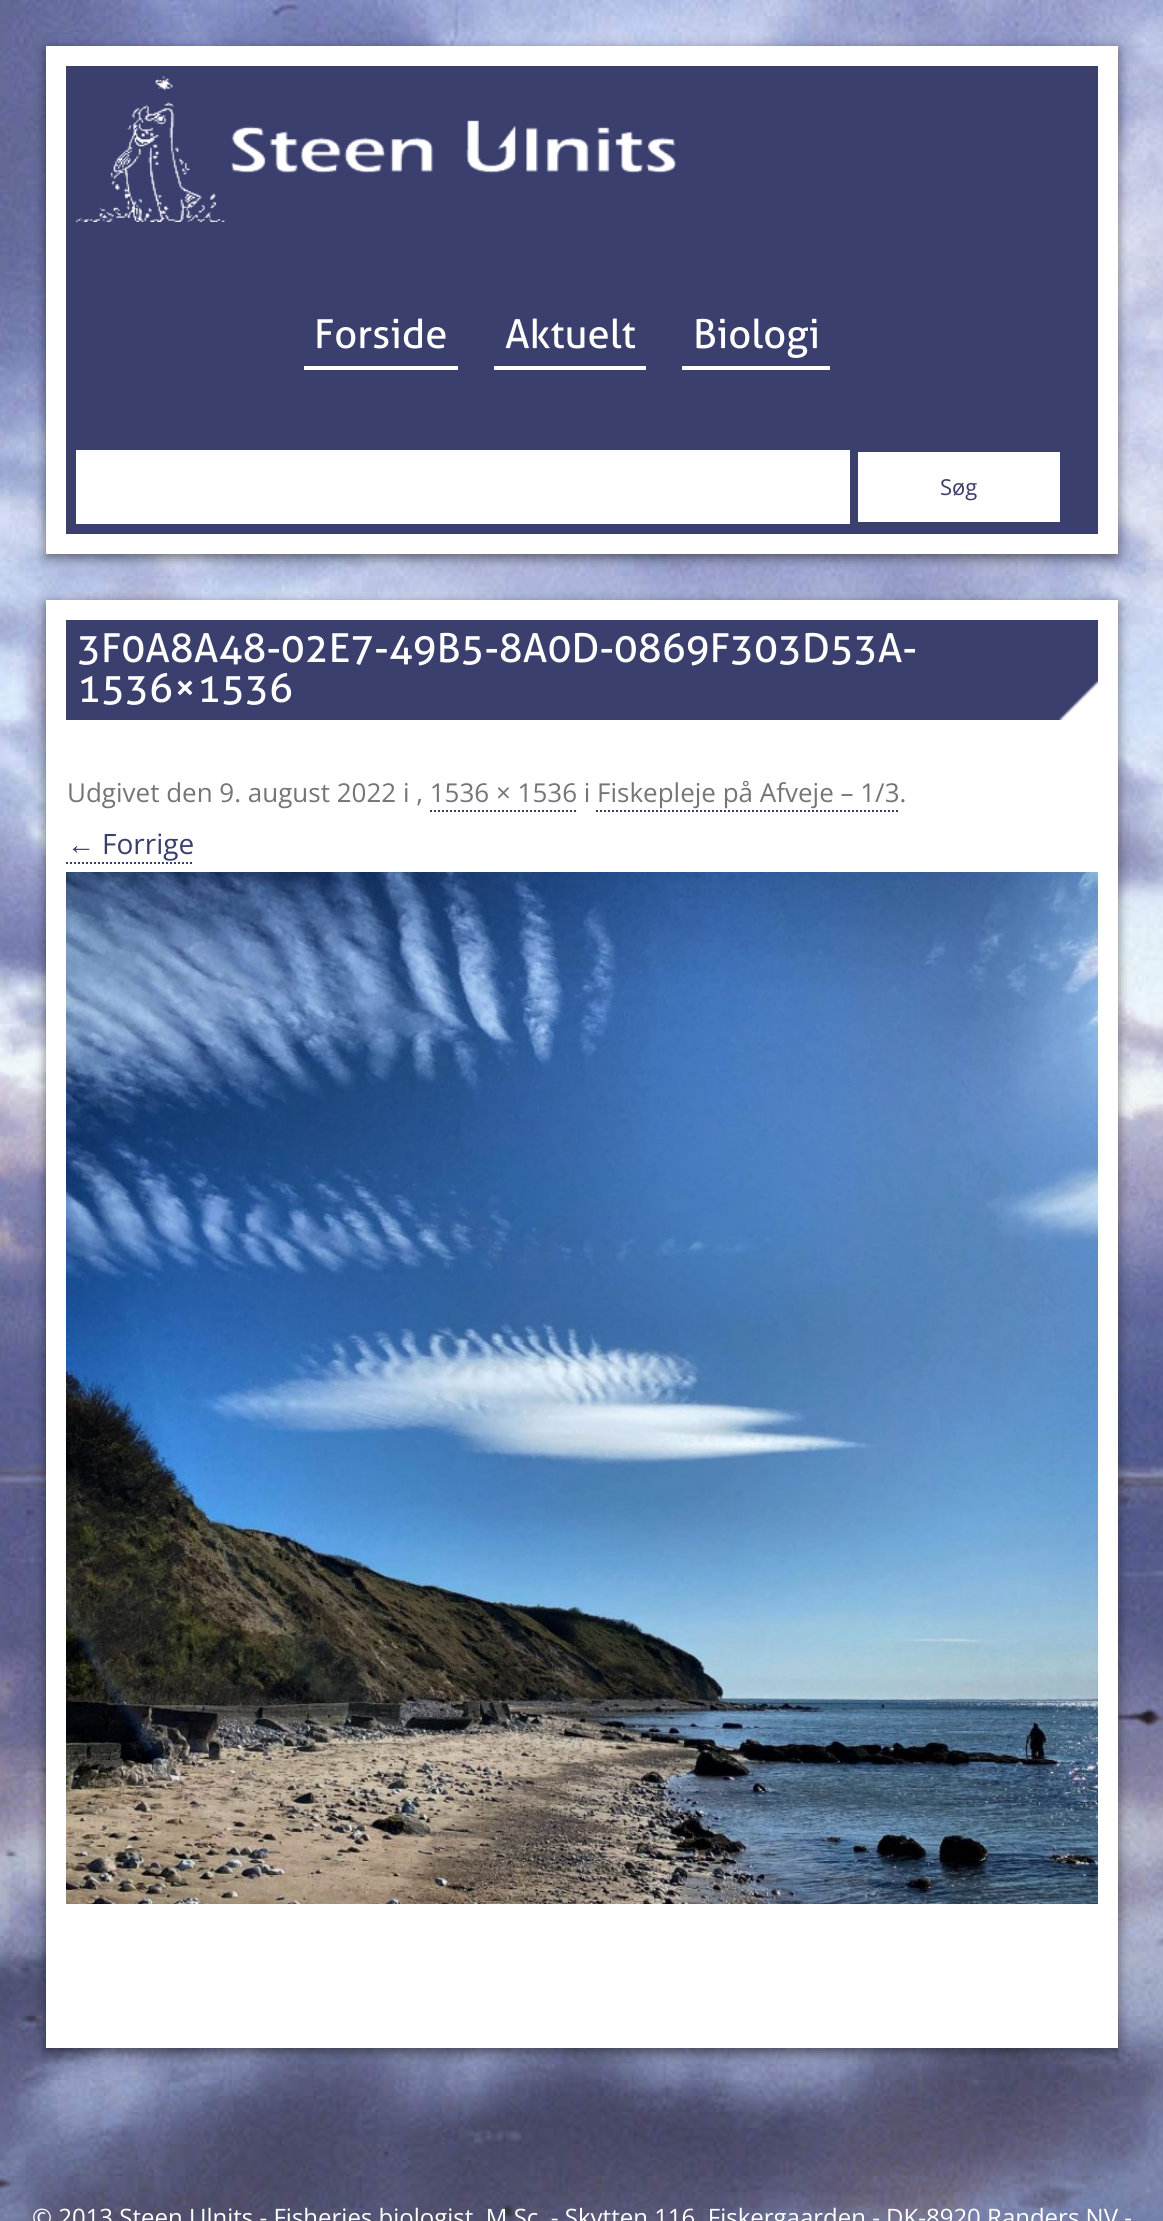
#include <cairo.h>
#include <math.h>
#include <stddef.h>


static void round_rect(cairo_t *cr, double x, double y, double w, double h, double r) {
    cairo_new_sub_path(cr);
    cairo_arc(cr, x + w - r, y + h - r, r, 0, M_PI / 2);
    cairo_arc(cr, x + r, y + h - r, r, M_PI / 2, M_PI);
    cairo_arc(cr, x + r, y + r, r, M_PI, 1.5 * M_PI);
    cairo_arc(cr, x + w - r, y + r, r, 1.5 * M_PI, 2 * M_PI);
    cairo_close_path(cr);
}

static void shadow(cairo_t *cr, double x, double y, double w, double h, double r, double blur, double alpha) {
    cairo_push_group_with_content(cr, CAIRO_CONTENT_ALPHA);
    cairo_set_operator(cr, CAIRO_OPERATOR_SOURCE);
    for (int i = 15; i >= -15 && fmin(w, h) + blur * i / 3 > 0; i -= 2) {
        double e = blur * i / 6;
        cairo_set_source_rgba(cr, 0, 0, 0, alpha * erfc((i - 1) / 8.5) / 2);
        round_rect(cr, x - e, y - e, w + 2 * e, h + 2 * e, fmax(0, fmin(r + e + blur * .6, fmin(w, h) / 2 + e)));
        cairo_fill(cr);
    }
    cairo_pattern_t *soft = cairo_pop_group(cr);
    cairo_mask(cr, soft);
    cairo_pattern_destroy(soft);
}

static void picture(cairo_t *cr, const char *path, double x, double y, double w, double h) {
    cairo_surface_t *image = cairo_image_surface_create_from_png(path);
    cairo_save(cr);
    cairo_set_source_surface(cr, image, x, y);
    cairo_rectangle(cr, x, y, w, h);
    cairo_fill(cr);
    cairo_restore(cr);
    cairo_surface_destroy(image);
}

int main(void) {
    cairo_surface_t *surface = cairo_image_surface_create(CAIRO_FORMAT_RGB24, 1163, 2221);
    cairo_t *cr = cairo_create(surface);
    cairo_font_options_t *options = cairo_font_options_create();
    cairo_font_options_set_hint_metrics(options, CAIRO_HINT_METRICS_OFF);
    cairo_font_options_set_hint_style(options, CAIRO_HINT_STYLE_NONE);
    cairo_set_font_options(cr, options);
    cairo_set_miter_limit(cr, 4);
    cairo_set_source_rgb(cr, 1, 1, 1);
    cairo_paint(cr);
    picture(cr, "img1.png", 0, 0, 1163, 2221);
    cairo_set_source_rgb(cr, 0, 0, 0);
    shadow(cr, 46, 50, 1072, 508, 0, 6, 0.5);
    cairo_set_source_rgb(cr, 0.227, 0.247, 0.431);
    cairo_rectangle(cr, 56, 56, 1052, 488);
    cairo_fill_preserve(cr);
    cairo_set_source_rgb(cr, 1, 1, 1);
    cairo_set_line_width(cr, 20);
    cairo_stroke(cr);
    picture(cr, "img2.png", 76, 76, 600, 146);
    cairo_rectangle(cr, 304, 366, 154, 4);
    cairo_fill(cr);
    cairo_select_font_face(cr, "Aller", CAIRO_FONT_SLANT_NORMAL, CAIRO_FONT_WEIGHT_NORMAL);
    cairo_set_font_size(cr, 40);
    cairo_move_to(cr, 314, 348);
    cairo_show_text(cr, "Forside");
    cairo_rectangle(cr, 494, 366, 152, 4);
    cairo_fill(cr);
    cairo_move_to(cr, 505, 348);
    cairo_show_text(cr, "Aktuelt");
    cairo_rectangle(cr, 682, 366, 148, 4);
    cairo_fill(cr);
    cairo_move_to(cr, 693, 348);
    cairo_show_text(cr, "Biologi");
    cairo_rectangle(cr, 76, 450, 774, 74);
    cairo_fill(cr);
    cairo_rectangle(cr, 858, 452, 202, 70);
    cairo_fill(cr);
    cairo_select_font_face(cr, "Open Sans", CAIRO_FONT_SLANT_NORMAL, CAIRO_FONT_WEIGHT_NORMAL);
    cairo_set_font_size(cr, 22);
    cairo_set_source_rgb(cr, 0.224, 0.247, 0.427);
    cairo_move_to(cr, 940, 495);
    cairo_show_text(cr, "Søg");
    cairo_set_source_rgb(cr, 0, 0, 0);
    shadow(cr, 46, 604, 1072, 1448, 0, 6, 0.5);
    cairo_set_source_rgb(cr, 1, 1, 1);
    cairo_rectangle(cr, 46, 600, 1072, 1448);
    cairo_fill(cr);
    cairo_set_source_rgb(cr, 0.227, 0.247, 0.431);
    cairo_rectangle(cr, 66, 620, 1032, 100);
    cairo_fill(cr);
    picture(cr, "img3.png", 1059, 681, 39, 39);
    cairo_select_font_face(cr, "Aller", CAIRO_FONT_SLANT_NORMAL, CAIRO_FONT_WEIGHT_NORMAL);
    cairo_set_font_size(cr, 40);
    cairo_set_source_rgb(cr, 1, 1, 1);
    cairo_move_to(cr, 77, 662);
    cairo_show_text(cr, "3F0A8A48-02E7-49B5-8A0D-0869F303D53A-");
    cairo_move_to(cr, 77, 702);
    cairo_show_text(cr, "1536×1536");
    cairo_select_font_face(cr, "Open Sans", CAIRO_FONT_SLANT_NORMAL, CAIRO_FONT_WEIGHT_NORMAL);
    cairo_set_font_size(cr, 26);
    cairo_set_source_rgb(cr, 0.459, 0.459, 0.459);
    cairo_move_to(cr, 67, 802);
    cairo_show_text(cr, "Udgivet den 9. august 2022 i , 1536 × 1536 i Fiskepleje på Afveje – 1/3.");
    cairo_new_path(cr);
    cairo_move_to(cr, 430, 811);
    cairo_line_to(cr, 576, 811);
    cairo_set_source_rgb(cr, 0.224, 0.247, 0.427);
    cairo_set_line_width(cr, 2);
    cairo_set_dash(cr, (double[]){2, 2}, 2, 0);
    cairo_stroke(cr);
    cairo_new_path(cr);
    cairo_move_to(cr, 596, 811);
    cairo_line_to(cr, 900, 811);
    cairo_stroke(cr);
    cairo_select_font_face(cr, "Liberation Sans", CAIRO_FONT_SLANT_NORMAL, CAIRO_FONT_WEIGHT_NORMAL);
    cairo_set_font_size(cr, 28);
    cairo_move_to(cr, 67, 854);
    cairo_show_text(cr, "←");
    cairo_new_path(cr);
    cairo_move_to(cr, 66, 863);
    cairo_line_to(cr, 194, 863);
    cairo_stroke(cr);
    cairo_select_font_face(cr, "Open Sans", CAIRO_FONT_SLANT_NORMAL, CAIRO_FONT_WEIGHT_NORMAL);
    cairo_move_to(cr, 102, 854);
    cairo_show_text(cr, "Forrige");
    picture(cr, "img4.png", 66, 872, 1032, 1032);
    cairo_set_font_size(cr, 24);
    cairo_set_source_rgb(cr, 1, 1, 1);
    cairo_move_to(cr, 32, 2226);
    cairo_show_text(cr, "© 2013 Steen Ulnits - Fisheries biologist, M.Sc. - Skytten 116, Fiskergaarden - DK-8920 Randers NV -");
    cairo_surface_write_to_png(surface, "page.png");
    cairo_font_options_destroy(options);
    cairo_destroy(cr);
    cairo_surface_destroy(surface);
    return 0;
}
